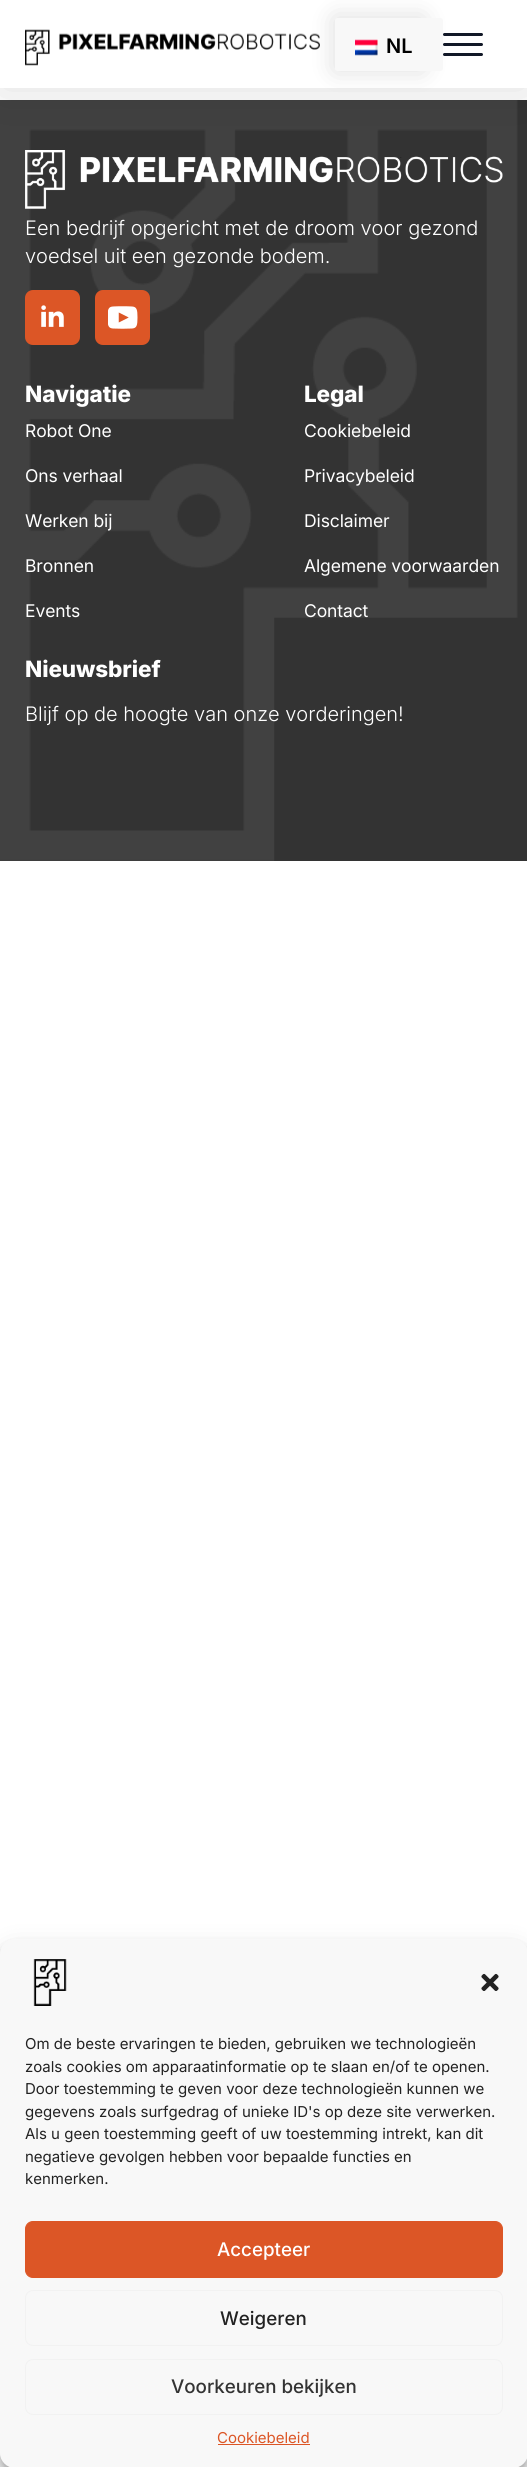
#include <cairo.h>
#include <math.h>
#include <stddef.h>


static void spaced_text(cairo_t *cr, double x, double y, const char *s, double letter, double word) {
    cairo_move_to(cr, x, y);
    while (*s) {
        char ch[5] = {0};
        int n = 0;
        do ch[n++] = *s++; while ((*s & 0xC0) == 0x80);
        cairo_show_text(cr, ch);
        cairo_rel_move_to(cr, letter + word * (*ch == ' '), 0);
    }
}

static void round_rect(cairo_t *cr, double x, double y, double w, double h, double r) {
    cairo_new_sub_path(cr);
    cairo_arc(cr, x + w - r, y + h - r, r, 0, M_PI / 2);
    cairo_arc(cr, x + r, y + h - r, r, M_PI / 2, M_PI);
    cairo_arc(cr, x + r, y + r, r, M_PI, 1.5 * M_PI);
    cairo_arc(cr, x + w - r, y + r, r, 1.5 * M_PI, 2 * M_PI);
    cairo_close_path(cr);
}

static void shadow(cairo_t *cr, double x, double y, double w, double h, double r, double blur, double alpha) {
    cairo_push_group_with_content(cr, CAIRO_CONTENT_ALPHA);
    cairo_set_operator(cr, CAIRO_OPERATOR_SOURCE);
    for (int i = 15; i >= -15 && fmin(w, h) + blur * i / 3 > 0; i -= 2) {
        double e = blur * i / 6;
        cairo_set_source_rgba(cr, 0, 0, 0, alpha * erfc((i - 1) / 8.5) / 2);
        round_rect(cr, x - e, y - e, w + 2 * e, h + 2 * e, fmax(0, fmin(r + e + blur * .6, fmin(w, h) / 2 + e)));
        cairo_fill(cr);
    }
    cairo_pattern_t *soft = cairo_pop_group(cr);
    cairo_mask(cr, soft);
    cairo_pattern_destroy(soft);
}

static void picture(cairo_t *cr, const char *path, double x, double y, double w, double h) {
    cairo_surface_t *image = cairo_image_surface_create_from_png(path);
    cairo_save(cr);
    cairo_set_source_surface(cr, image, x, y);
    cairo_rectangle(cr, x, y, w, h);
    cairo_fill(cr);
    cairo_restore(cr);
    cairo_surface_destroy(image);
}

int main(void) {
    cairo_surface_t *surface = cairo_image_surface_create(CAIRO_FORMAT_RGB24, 527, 2467);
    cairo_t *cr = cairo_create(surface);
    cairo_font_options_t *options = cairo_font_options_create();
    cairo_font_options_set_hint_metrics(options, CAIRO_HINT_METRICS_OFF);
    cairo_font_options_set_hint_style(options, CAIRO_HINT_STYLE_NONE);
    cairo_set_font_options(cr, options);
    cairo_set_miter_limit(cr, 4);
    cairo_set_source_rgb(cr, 1, 1, 1);
    cairo_paint(cr);
    cairo_set_source_rgb(cr, 0.2, 0.2, 0.2);
    cairo_rectangle(cr, 0, 100, 527, 761);
    cairo_fill(cr);
    picture(cr, "img3.png", 0, 100, 518, 761);
    picture(cr, "img4.png", 25, 150, 478, 59);
    cairo_set_source_rgb(cr, 0, 0, 0);
    shadow(cr, 0, 0, 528, 88, 0, 25, 0.14);
    cairo_set_source_rgb(cr, 1, 1, 1);
    cairo_rectangle(cr, 0, 0, 527, 88);
    cairo_fill(cr);
    picture(cr, "img1.png", 25, 29, 295, 37);
    cairo_set_source_rgb(cr, 0.067, 0.094, 0.153);
    round_rect(cr, 443, 33, 40, 3, 1.5);
    cairo_fill(cr);
    round_rect(cr, 443, 43, 40, 3, 1.5);
    cairo_fill(cr);
    round_rect(cr, 443, 53, 40, 3, 1.5);
    cairo_fill(cr);
    cairo_set_source_rgb(cr, 0, 0, 0);
    shadow(cr, 335, 18, 88, 52, 0, 12.5, 0.14);
    cairo_set_source_rgb(cr, 0.969, 0.969, 0.969);
    round_rect(cr, 335, 18, 108, 53, 2.5);
    cairo_fill(cr);
    picture(cr, "img2.png", 355, 39, 23, 17);
    cairo_select_font_face(cr, "Inter SemiBold", CAIRO_FONT_SLANT_NORMAL, CAIRO_FONT_WEIGHT_NORMAL);
    cairo_set_font_size(cr, 20);
    cairo_set_source_rgb(cr, 0, 0, 0);
    cairo_move_to(cr, 386, 53);
    cairo_show_text(cr, "NL");
    cairo_select_font_face(cr, "Inter Light", CAIRO_FONT_SLANT_NORMAL, CAIRO_FONT_WEIGHT_NORMAL);
    cairo_set_source_rgb(cr, 1, 1, 1);
    cairo_move_to(cr, 25, 235);
    cairo_show_text(cr, "Een bedrijf opgericht met de droom voor gezond");
    cairo_move_to(cr, 25, 263);
    cairo_show_text(cr, "voedsel uit een gezonde bodem.");
    cairo_set_source_rgb(cr, 0.863, 0.337, 0.149);
    round_rect(cr, 25, 290, 55, 55, 8);
    cairo_fill(cr);
    picture(cr, "img5.png", 41, 305, 23, 22);
    round_rect(cr, 95, 290, 55, 55, 8);
    cairo_fill(cr);
    picture(cr, "img6.png", 108, 306, 30, 23);
    cairo_select_font_face(cr, "Inter ExtraBold", CAIRO_FONT_SLANT_NORMAL, CAIRO_FONT_WEIGHT_NORMAL);
    cairo_set_font_size(cr, 22.5);
    cairo_set_source_rgb(cr, 1, 1, 1);
    spaced_text(cr, 25, 402, "Navigatie", -0.1, 0);
    cairo_select_font_face(cr, "Inter", CAIRO_FONT_SLANT_NORMAL, CAIRO_FONT_WEIGHT_NORMAL);
    cairo_set_font_size(cr, 17.5);
    spaced_text(cr, 25, 437, "Robot One", -0.1, 0);
    spaced_text(cr, 25, 482, "Ons verhaal", -0.1, 0);
    spaced_text(cr, 25, 527, "Werken bij", -0.1, 0);
    spaced_text(cr, 25, 572, "Bronnen", -0.1, 0);
    spaced_text(cr, 25, 617, "Events", -0.1, 0);
    cairo_select_font_face(cr, "Inter ExtraBold", CAIRO_FONT_SLANT_NORMAL, CAIRO_FONT_WEIGHT_NORMAL);
    cairo_set_font_size(cr, 22.5);
    spaced_text(cr, 304, 402, "Legal", -0.1, 0);
    cairo_select_font_face(cr, "Inter", CAIRO_FONT_SLANT_NORMAL, CAIRO_FONT_WEIGHT_NORMAL);
    cairo_set_font_size(cr, 17.5);
    spaced_text(cr, 304, 437, "Cookiebeleid", -0.1, 0);
    spaced_text(cr, 304, 482, "Privacybeleid", -0.1, 0);
    spaced_text(cr, 304, 527, "Disclaimer", -0.1, 0);
    spaced_text(cr, 304, 572, "Algemene voorwaarden", -0.1, 0);
    spaced_text(cr, 304, 617, "Contact", -0.1, 0);
    cairo_select_font_face(cr, "Inter ExtraBold", CAIRO_FONT_SLANT_NORMAL, CAIRO_FONT_WEIGHT_NORMAL);
    cairo_set_font_size(cr, 22.5);
    spaced_text(cr, 25, 677, "Nieuwsbrief", -0.1, 0);
    cairo_select_font_face(cr, "Inter Light", CAIRO_FONT_SLANT_NORMAL, CAIRO_FONT_WEIGHT_NORMAL);
    cairo_set_font_size(cr, 20);
    cairo_move_to(cr, 25, 721);
    cairo_show_text(cr, "Blijf op de hoogte van onze vorderingen!");
    cairo_set_source_rgb(cr, 0, 0, 0);
    shadow(cr, 0, 1946, 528, 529, 15, 4, 0.23);
    shadow(cr, 0, 1951, 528, 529, 15, 12.5, 0.19);
    cairo_set_source_rgb(cr, 0.969, 0.969, 0.969);
    round_rect(cr, 0, 1939, 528, 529, 15);
    cairo_fill(cr);
    picture(cr, "img7.png", 33, 1959, 34, 47);
    picture(cr, "img8.png", 481, 1973, 18, 18);
    cairo_select_font_face(cr, "Inter", CAIRO_FONT_SLANT_NORMAL, CAIRO_FONT_WEIGHT_NORMAL);
    cairo_set_font_size(cr, 15);
    cairo_set_source_rgb(cr, 0.133, 0.133, 0.133);
    cairo_move_to(cr, 25, 2049);
    cairo_show_text(cr, "Om de beste ervaringen te bieden, gebruiken we technologieën");
    cairo_move_to(cr, 25, 2072);
    cairo_show_text(cr, "zoals cookies om apparaatinformatie op te slaan en/of te openen.");
    cairo_move_to(cr, 25, 2094);
    cairo_show_text(cr, "Door toestemming te geven voor deze technologieën kunnen we");
    cairo_move_to(cr, 25, 2117);
    cairo_show_text(cr, "gegevens zoals surfgedrag of unieke ID's op deze site verwerken.");
    cairo_move_to(cr, 25, 2139);
    cairo_show_text(cr, "Als u geen toestemming geeft of uw toestemming intrekt, kan dit");
    cairo_move_to(cr, 25, 2162);
    cairo_show_text(cr, "negatieve gevolgen hebben voor bepaalde functies en");
    cairo_move_to(cr, 25, 2184);
    cairo_show_text(cr, "kenmerken.");
    cairo_set_source_rgb(cr, 0.863, 0.337, 0.149);
    round_rect(cr, 25.5, 2221.5, 477, 56, 7.5);
    cairo_fill_preserve(cr);
    cairo_set_line_width(cr, 1);
    cairo_stroke(cr);
    cairo_select_font_face(cr, "Inter Medium", CAIRO_FONT_SLANT_NORMAL, CAIRO_FONT_WEIGHT_NORMAL);
    cairo_set_font_size(cr, 18.75);
    cairo_set_source_rgb(cr, 1, 1, 1);
    cairo_move_to(cr, 217, 2256);
    cairo_show_text(cr, "Accepteer");
    round_rect(cr, 25.5, 2290.5, 477, 55, 7.5);
    cairo_set_source_rgb(cr, 0.949, 0.949, 0.949);
    cairo_stroke(cr);
    cairo_set_source_rgb(cr, 0.133, 0.133, 0.133);
    cairo_move_to(cr, 220, 2325);
    cairo_show_text(cr, "Weigeren");
    round_rect(cr, 25.5, 2359.5, 477, 55, 7.5);
    cairo_set_source_rgb(cr, 0.949, 0.949, 0.949);
    cairo_stroke(cr);
    cairo_set_source_rgb(cr, 0.2, 0.2, 0.2);
    cairo_move_to(cr, 171, 2393);
    cairo_show_text(cr, "Voorkeuren bekijken");
    cairo_select_font_face(cr, "Inter", CAIRO_FONT_SLANT_NORMAL, CAIRO_FONT_WEIGHT_NORMAL);
    cairo_set_font_size(cr, 15);
    cairo_set_source_rgb(cr, 0.863, 0.337, 0.149);
    cairo_move_to(cr, 217, 2443);
    cairo_show_text(cr, "Cookiebeleid");
    cairo_rectangle(cr, 218, 2444, 92, 1);
    cairo_fill(cr);
    cairo_surface_write_to_png(surface, "page.png");
    cairo_font_options_destroy(options);
    cairo_destroy(cr);
    cairo_surface_destroy(surface);
    return 0;
}
